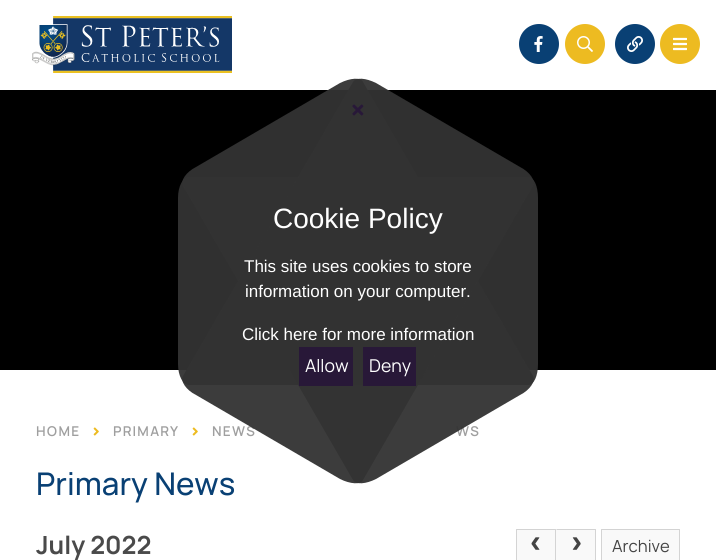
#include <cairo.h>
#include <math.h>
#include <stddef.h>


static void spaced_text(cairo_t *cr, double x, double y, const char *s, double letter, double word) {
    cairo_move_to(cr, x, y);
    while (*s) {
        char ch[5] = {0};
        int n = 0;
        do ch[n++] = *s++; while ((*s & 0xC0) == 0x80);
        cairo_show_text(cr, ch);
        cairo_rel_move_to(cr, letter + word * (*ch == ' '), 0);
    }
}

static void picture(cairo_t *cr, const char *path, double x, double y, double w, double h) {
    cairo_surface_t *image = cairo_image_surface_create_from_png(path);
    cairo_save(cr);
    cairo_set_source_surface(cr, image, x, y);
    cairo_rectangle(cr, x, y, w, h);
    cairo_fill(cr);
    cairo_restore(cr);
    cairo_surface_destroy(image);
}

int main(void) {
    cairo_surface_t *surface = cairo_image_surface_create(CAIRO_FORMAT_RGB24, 716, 560);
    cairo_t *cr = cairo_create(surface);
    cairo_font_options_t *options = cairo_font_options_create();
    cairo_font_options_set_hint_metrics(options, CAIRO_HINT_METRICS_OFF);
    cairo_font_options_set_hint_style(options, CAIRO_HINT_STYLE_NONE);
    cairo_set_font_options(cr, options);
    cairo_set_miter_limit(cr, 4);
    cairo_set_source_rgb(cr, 1, 1, 1);
    cairo_paint(cr);
    cairo_set_source_rgb(cr, 0, 0, 0);
    cairo_rectangle(cr, 0, 90, 716, 280);
    cairo_fill(cr);
    cairo_set_source_rgba(cr, 0.2, 0.2, 0.2, 0.95);
    cairo_new_path(cr);
    cairo_move_to(cr, 538, 198);
    cairo_line_to(cr, 538, 364);
    cairo_curve_to(cr, 538, 376, 534, 385, 528, 385);
    cairo_line_to(cr, 189, 385);
    cairo_curve_to(cr, 183, 385, 178, 376, 178, 364);
    cairo_line_to(cr, 178, 198);
    cairo_curve_to(cr, 178, 186, 183, 177, 189, 177);
    cairo_line_to(cr, 528, 177);
    cairo_curve_to(cr, 534, 177, 538, 186, 538, 198);
    cairo_close_path(cr);
    cairo_fill(cr);
    picture(cr, "img7.png", 192, 427, 6, 9);
    cairo_select_font_face(cr, "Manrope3 SemiBold", CAIRO_FONT_SLANT_NORMAL, CAIRO_FONT_WEIGHT_NORMAL);
    cairo_set_font_size(cr, 13);
    cairo_set_source_rgb(cr, 0.624, 0.624, 0.624);
    spaced_text(cr, 212, 436, "NEWS", 1.25, 0);
    picture(cr, "img7.png", 346, 427, 6, 9);
    spaced_text(cr, 456, 436, "WS", 1.25, 0);
    cairo_select_font_face(cr, "Manrope3 Medium", CAIRO_FONT_SLANT_NORMAL, CAIRO_FONT_WEIGHT_NORMAL);
    cairo_set_font_size(cr, 30);
    cairo_set_source_rgb(cr, 0.039, 0.251, 0.455);
    cairo_move_to(cr, 36, 495);
    cairo_show_text(cr, "Primary News");
    cairo_set_source_rgba(cr, 0.2, 0.2, 0.2, 0.95);
    cairo_new_path(cr);
    cairo_move_to(cr, 520, 395);
    cairo_line_to(cr, 376, 479);
    cairo_curve_to(cr, 366, 484, 356, 485, 353, 480);
    cairo_line_to(cr, 183, 186);
    cairo_curve_to(cr, 180, 181, 186, 172, 196, 167);
    cairo_line_to(cr, 340, 83);
    cairo_curve_to(cr, 350, 78, 361, 77, 363, 82);
    cairo_line_to(cr, 533, 376);
    cairo_curve_to(cr, 536, 381, 530, 390, 520, 395);
    cairo_close_path(cr);
    cairo_fill(cr);
    cairo_new_path(cr);
    cairo_move_to(cr, 376, 83);
    cairo_line_to(cr, 520, 167);
    cairo_curve_to(cr, 530, 172, 536, 181, 533, 186);
    cairo_line_to(cr, 363, 480);
    cairo_curve_to(cr, 361, 485, 350, 484, 340, 479);
    cairo_line_to(cr, 196, 395);
    cairo_curve_to(cr, 186, 390, 180, 381, 183, 376);
    cairo_line_to(cr, 353, 82);
    cairo_curve_to(cr, 356, 77, 366, 78, 376, 83);
    cairo_close_path(cr);
    cairo_fill(cr);
    picture(cr, "img1.png", 352, 104, 12, 12);
    cairo_select_font_face(cr, "Liberation Sans", CAIRO_FONT_SLANT_NORMAL, CAIRO_FONT_WEIGHT_NORMAL);
    cairo_set_font_size(cr, 28);
    cairo_set_source_rgb(cr, 1, 1, 1);
    cairo_move_to(cr, 273, 228);
    cairo_show_text(cr, "Cookie Policy");
    cairo_set_font_size(cr, 17);
    cairo_move_to(cr, 244, 272);
    cairo_show_text(cr, "This site uses cookies to store");
    cairo_move_to(cr, 245, 297);
    cairo_show_text(cr, "information on your computer.");
    cairo_move_to(cr, 242, 340);
    cairo_show_text(cr, "Click here for more information");
    cairo_set_source_rgb(cr, 0.157, 0.094, 0.22);
    cairo_rectangle(cr, 299, 347, 54, 39);
    cairo_fill(cr);
    cairo_select_font_face(cr, "Manrope3", CAIRO_FONT_SLANT_NORMAL, CAIRO_FONT_WEIGHT_NORMAL);
    cairo_set_source_rgb(cr, 1, 1, 1);
    cairo_move_to(cr, 305, 372);
    cairo_show_text(cr, "Allow");
    cairo_set_source_rgb(cr, 0.157, 0.094, 0.22);
    cairo_rectangle(cr, 363, 347, 53, 39);
    cairo_fill(cr);
    cairo_set_source_rgb(cr, 1, 1, 1);
    cairo_move_to(cr, 369, 372);
    cairo_show_text(cr, "Deny");
    picture(cr, "img2.png", 32, 16, 200, 57);
    cairo_set_source_rgb(cr, 0.039, 0.251, 0.455);
    cairo_arc(cr, 539, 44, 20, 0, 2 * M_PI);
    cairo_fill(cr);
    picture(cr, "img3.png", 534, 36, 9, 16);
    cairo_set_source_rgb(cr, 0.929, 0.733, 0.129);
    cairo_arc(cr, 585, 44, 20, 0, 2 * M_PI);
    cairo_fill(cr);
    picture(cr, "img4.png", 577, 36, 16, 16);
    cairo_set_source_rgb(cr, 0.039, 0.251, 0.455);
    cairo_arc(cr, 635, 44, 20, 0, 2 * M_PI);
    cairo_fill(cr);
    picture(cr, "img5.png", 627, 36, 16, 16);
    cairo_set_source_rgb(cr, 0.929, 0.733, 0.129);
    cairo_arc(cr, 680, 44, 20, 0, 2 * M_PI);
    cairo_fill(cr);
    picture(cr, "img6.png", 673, 37, 14, 14);
    cairo_select_font_face(cr, "Manrope3 SemiBold", CAIRO_FONT_SLANT_NORMAL, CAIRO_FONT_WEIGHT_NORMAL);
    cairo_set_font_size(cr, 13);
    cairo_set_source_rgb(cr, 0.624, 0.624, 0.624);
    spaced_text(cr, 36, 436, "HOME", 1.25, 0);
    picture(cr, "img7.png", 93, 427, 6, 9);
    spaced_text(cr, 113, 436, "PRIMARY", 1.25, 0);
    cairo_select_font_face(cr, "Manrope3", CAIRO_FONT_SLANT_NORMAL, CAIRO_FONT_WEIGHT_BOLD);
    cairo_set_font_size(cr, 24);
    cairo_set_source_rgb(cr, 0.29, 0.29, 0.29);
    cairo_move_to(cr, 36, 554);
    cairo_show_text(cr, "July 2022");
    cairo_set_source_rgb(cr, 0.973, 0.973, 0.973);
    cairo_rectangle(cr, 516, 529, 80, 31);
    cairo_fill(cr);
    cairo_set_source_rgb(cr, 0.827, 0.827, 0.827);
    cairo_new_path(cr);
    cairo_move_to(cr, 516, 529);
    cairo_line_to(cr, 556, 529);
    cairo_line_to(cr, 555, 530);
    cairo_line_to(cr, 517, 530);
    cairo_close_path(cr);
    cairo_fill(cr);
    cairo_set_source_rgba(cr, 0, 0, 0, 0.15);
    cairo_new_path(cr);
    cairo_move_to(cr, 556, 529);
    cairo_line_to(cr, 556, 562);
    cairo_line_to(cr, 555, 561);
    cairo_line_to(cr, 555, 530);
    cairo_close_path(cr);
    cairo_move_to(cr, 516, 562);
    cairo_line_to(cr, 516, 529);
    cairo_line_to(cr, 517, 530);
    cairo_line_to(cr, 517, 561);
    cairo_close_path(cr);
    cairo_fill(cr);
    cairo_select_font_face(cr, "Liberation Mono", CAIRO_FONT_SLANT_NORMAL, CAIRO_FONT_WEIGHT_BOLD);
    cairo_set_font_size(cr, 32);
    cairo_set_source_rgb(cr, 0.267, 0.267, 0.267);
    cairo_move_to(cr, 526, 552);
    cairo_show_text(cr, "‹");
    cairo_set_source_rgb(cr, 0.827, 0.827, 0.827);
    cairo_new_path(cr);
    cairo_move_to(cr, 556, 529);
    cairo_line_to(cr, 596, 529);
    cairo_line_to(cr, 595, 530);
    cairo_line_to(cr, 557, 530);
    cairo_close_path(cr);
    cairo_fill(cr);
    cairo_set_source_rgba(cr, 0, 0, 0, 0.15);
    cairo_new_path(cr);
    cairo_move_to(cr, 596, 529);
    cairo_line_to(cr, 596, 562);
    cairo_line_to(cr, 595, 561);
    cairo_line_to(cr, 595, 530);
    cairo_close_path(cr);
    cairo_fill(cr);
    cairo_set_source_rgb(cr, 0.267, 0.267, 0.267);
    cairo_move_to(cr, 567, 552);
    cairo_show_text(cr, "›");
    cairo_set_source_rgb(cr, 0.973, 0.973, 0.973);
    cairo_rectangle(cr, 601, 529, 79, 31);
    cairo_fill(cr);
    cairo_set_source_rgb(cr, 0.827, 0.827, 0.827);
    cairo_new_path(cr);
    cairo_move_to(cr, 601, 529);
    cairo_line_to(cr, 680, 529);
    cairo_line_to(cr, 679, 530);
    cairo_line_to(cr, 602, 530);
    cairo_close_path(cr);
    cairo_fill(cr);
    cairo_set_source_rgba(cr, 0, 0, 0, 0.15);
    cairo_new_path(cr);
    cairo_move_to(cr, 680, 529);
    cairo_line_to(cr, 680, 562);
    cairo_line_to(cr, 679, 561);
    cairo_line_to(cr, 679, 530);
    cairo_close_path(cr);
    cairo_fill(cr);
    cairo_new_path(cr);
    cairo_move_to(cr, 601, 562);
    cairo_line_to(cr, 601, 529);
    cairo_line_to(cr, 602, 530);
    cairo_line_to(cr, 602, 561);
    cairo_close_path(cr);
    cairo_fill(cr);
    cairo_select_font_face(cr, "Manrope3", CAIRO_FONT_SLANT_NORMAL, CAIRO_FONT_WEIGHT_NORMAL);
    cairo_set_font_size(cr, 16);
    cairo_set_source_rgb(cr, 0.267, 0.267, 0.267);
    cairo_move_to(cr, 612, 552);
    cairo_show_text(cr, "Archive");
    cairo_surface_write_to_png(surface, "page.png");
    cairo_font_options_destroy(options);
    cairo_destroy(cr);
    cairo_surface_destroy(surface);
    return 0;
}
